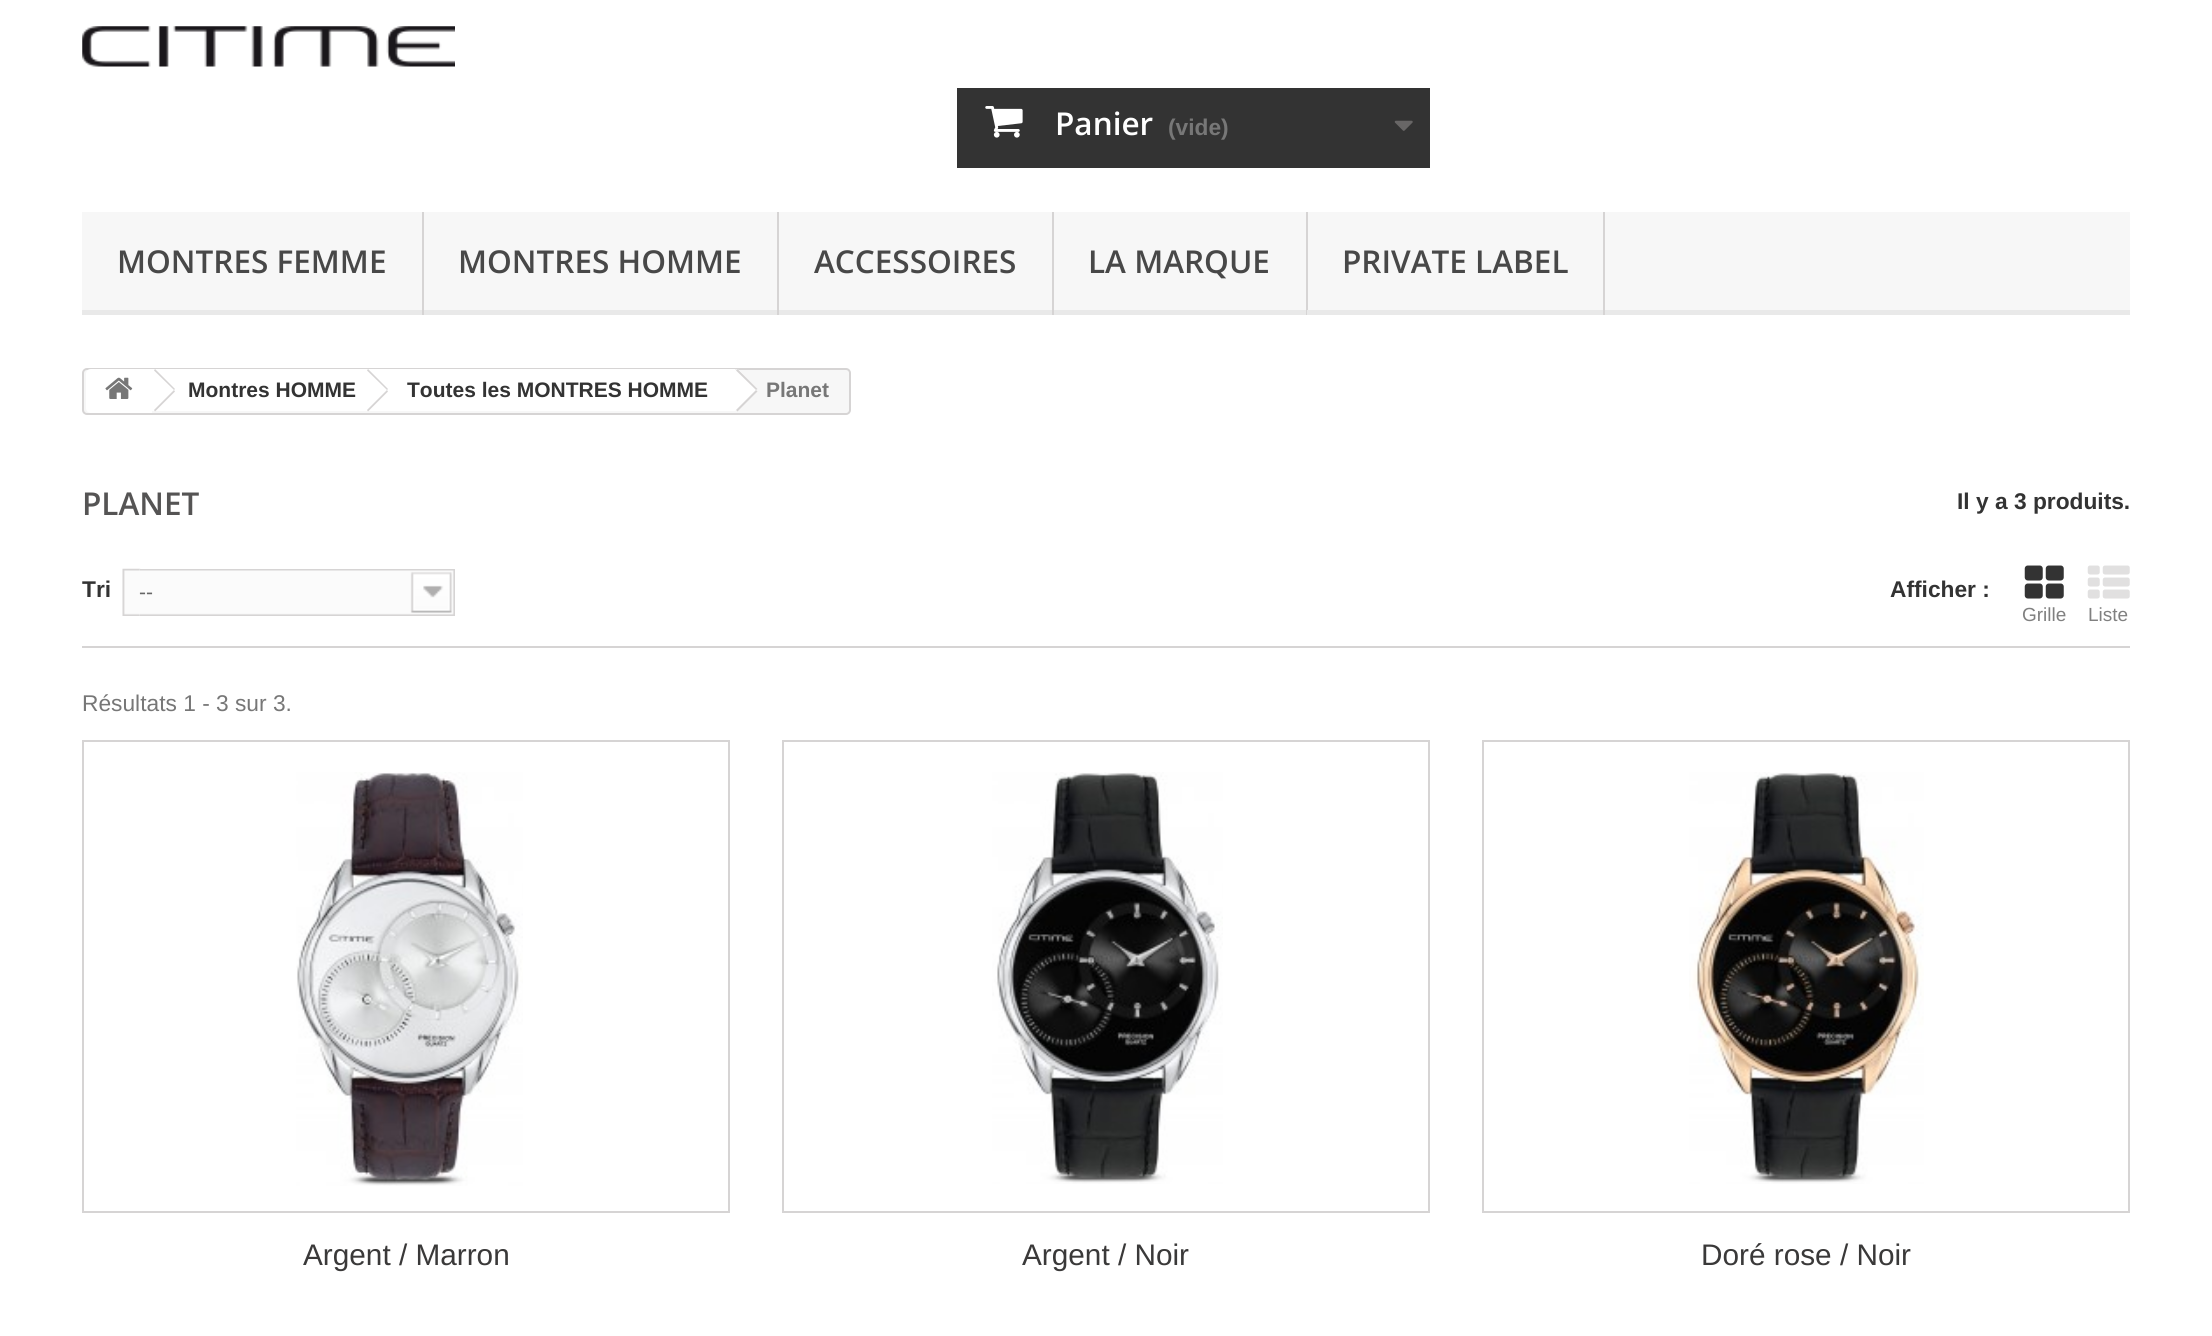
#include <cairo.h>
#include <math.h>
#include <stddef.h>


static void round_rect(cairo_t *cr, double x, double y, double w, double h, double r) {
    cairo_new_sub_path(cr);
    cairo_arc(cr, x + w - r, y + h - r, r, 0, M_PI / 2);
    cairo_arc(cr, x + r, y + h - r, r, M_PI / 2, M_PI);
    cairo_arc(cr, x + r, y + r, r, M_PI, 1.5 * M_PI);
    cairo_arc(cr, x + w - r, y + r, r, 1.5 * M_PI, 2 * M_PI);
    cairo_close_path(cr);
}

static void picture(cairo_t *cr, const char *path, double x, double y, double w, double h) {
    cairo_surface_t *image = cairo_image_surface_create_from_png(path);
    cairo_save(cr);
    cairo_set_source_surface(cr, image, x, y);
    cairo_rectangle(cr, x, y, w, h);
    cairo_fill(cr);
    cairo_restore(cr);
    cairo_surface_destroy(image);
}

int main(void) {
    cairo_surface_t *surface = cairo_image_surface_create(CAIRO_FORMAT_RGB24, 2212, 1336);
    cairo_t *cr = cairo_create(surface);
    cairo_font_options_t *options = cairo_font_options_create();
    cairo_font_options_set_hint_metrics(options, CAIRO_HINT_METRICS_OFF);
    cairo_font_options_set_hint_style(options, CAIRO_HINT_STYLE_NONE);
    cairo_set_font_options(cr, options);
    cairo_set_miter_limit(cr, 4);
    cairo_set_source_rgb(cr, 1, 1, 1);
    cairo_paint(cr);
    picture(cr, "img1.png", 82, 26, 373, 41);
    cairo_set_source_rgb(cr, 0.2, 0.2, 0.2);
    cairo_rectangle(cr, 957, 88, 473, 80);
    cairo_fill(cr);
    picture(cr, "img2.png", 985, 106, 38, 32);
    cairo_select_font_face(cr, "Open Sans SemiBold", CAIRO_FONT_SLANT_NORMAL, CAIRO_FONT_WEIGHT_NORMAL);
    cairo_set_font_size(cr, 31.5);
    cairo_set_source_rgb(cr, 1, 1, 1);
    cairo_move_to(cr, 1055, 135);
    cairo_show_text(cr, "Panier");
    cairo_select_font_face(cr, "Liberation Sans", CAIRO_FONT_SLANT_NORMAL, CAIRO_FONT_WEIGHT_BOLD);
    cairo_set_font_size(cr, 22.75);
    cairo_set_source_rgb(cr, 0.467, 0.467, 0.467);
    cairo_move_to(cr, 1168, 135);
    cairo_show_text(cr, "(vide)");
    picture(cr, "img3.png", 1394, 120, 19, 11);
    cairo_set_source_rgb(cr, 0.965, 0.965, 0.965);
    cairo_rectangle(cr, 82, 212, 2048, 98);
    cairo_fill(cr);
    cairo_set_source_rgb(cr, 0.914, 0.914, 0.914);
    cairo_rectangle(cr, 82, 310, 2048, 5);
    cairo_fill(cr);
    cairo_set_source_rgb(cr, 0.839, 0.831, 0.831);
    cairo_rectangle(cr, 422, 212, 2, 103);
    cairo_fill(cr);
    cairo_select_font_face(cr, "Open Sans SemiBold", CAIRO_FONT_SLANT_NORMAL, CAIRO_FONT_WEIGHT_NORMAL);
    cairo_set_font_size(cr, 31.5);
    cairo_set_source_rgb(cr, 0.282, 0.282, 0.282);
    cairo_move_to(cr, 117, 273);
    cairo_show_text(cr, "MONTRES FEMME");
    cairo_set_source_rgb(cr, 0.839, 0.831, 0.831);
    cairo_rectangle(cr, 777, 212, 2, 103);
    cairo_fill(cr);
    cairo_set_source_rgb(cr, 0.282, 0.282, 0.282);
    cairo_move_to(cr, 458, 273);
    cairo_show_text(cr, "MONTRES HOMME");
    cairo_set_source_rgb(cr, 0.839, 0.831, 0.831);
    cairo_rectangle(cr, 1052, 212, 2, 103);
    cairo_fill(cr);
    cairo_set_source_rgb(cr, 0.282, 0.282, 0.282);
    cairo_move_to(cr, 814, 273);
    cairo_show_text(cr, "ACCESSOIRES");
    cairo_set_source_rgb(cr, 0.839, 0.831, 0.831);
    cairo_rectangle(cr, 1306, 212, 2, 103);
    cairo_fill(cr);
    cairo_set_source_rgb(cr, 0.282, 0.282, 0.282);
    cairo_move_to(cr, 1088, 273);
    cairo_show_text(cr, "LA MARQUE");
    cairo_set_source_rgb(cr, 0.839, 0.831, 0.831);
    cairo_rectangle(cr, 1603, 212, 2, 103);
    cairo_fill(cr);
    cairo_set_source_rgb(cr, 0.914, 0.914, 0.914);
    cairo_rectangle(cr, 1307, 310, 1, 5);
    cairo_fill(cr);
    cairo_set_source_rgb(cr, 0.282, 0.282, 0.282);
    cairo_move_to(cr, 1342, 273);
    cairo_show_text(cr, "PRIVATE LABEL");
    cairo_set_source_rgb(cr, 0.965, 0.965, 0.965);
    round_rect(cr, 83, 369, 767, 45, 4);
    cairo_fill_preserve(cr);
    cairo_set_source_rgb(cr, 0.839, 0.831, 0.831);
    cairo_stroke(cr);
    cairo_set_source_rgb(cr, 1, 1, 1);
    cairo_new_path(cr);
    cairo_move_to(cr, 91, 369);
    cairo_line_to(cr, 152, 369);
    cairo_line_to(cr, 152, 413);
    cairo_line_to(cr, 91, 413);
    cairo_curve_to(cr, 88, 413, 86, 411, 86, 408);
    cairo_line_to(cr, 86, 374);
    cairo_curve_to(cr, 86, 371, 88, 369, 91, 369);
    cairo_close_path(cr);
    cairo_fill(cr);
    picture(cr, "img4.png", 105, 377, 28, 22);
    cairo_rectangle(cr, 152, 369, 217, 42);
    cairo_fill(cr);
    cairo_set_source_rgb(cr, 0.839, 0.831, 0.831);
    cairo_new_path(cr);
    cairo_move_to(cr, 155, 369);
    cairo_line_to(cr, 175, 389);
    cairo_line_to(cr, 174, 390);
    cairo_line_to(cr, 154, 370.5);
    cairo_close_path(cr);
    cairo_move_to(cr, 174, 390);
    cairo_line_to(cr, 175, 391.5);
    cairo_line_to(cr, 155, 411.5);
    cairo_line_to(cr, 154, 410);
    cairo_close_path(cr);
    cairo_fill(cr);
    cairo_select_font_face(cr, "Liberation Sans", CAIRO_FONT_SLANT_NORMAL, CAIRO_FONT_WEIGHT_BOLD);
    cairo_set_font_size(cr, 21);
    cairo_set_source_rgb(cr, 0.2, 0.2, 0.2);
    cairo_move_to(cr, 188, 397);
    cairo_show_text(cr, "Montres HOMME");
    cairo_set_source_rgb(cr, 1, 1, 1);
    cairo_new_path(cr);
    cairo_move_to(cr, 387, 370);
    cairo_line_to(cr, 404, 388);
    cairo_curve_to(cr, 406, 389, 406, 391, 404, 393);
    cairo_line_to(cr, 387, 410);
    cairo_curve_to(cr, 386, 411, 383, 411, 382, 410);
    cairo_line_to(cr, 365, 393);
    cairo_curve_to(cr, 363, 391, 363, 389, 365, 388);
    cairo_line_to(cr, 382, 370);
    cairo_curve_to(cr, 383, 369, 386, 369, 387, 370);
    cairo_close_path(cr);
    cairo_fill(cr);
    cairo_rectangle(cr, 369, 369, 366, 42);
    cairo_fill(cr);
    cairo_set_source_rgb(cr, 0.839, 0.831, 0.831);
    cairo_new_path(cr);
    cairo_move_to(cr, 368, 369);
    cairo_line_to(cr, 388, 389);
    cairo_line_to(cr, 387, 390);
    cairo_line_to(cr, 367, 370.5);
    cairo_close_path(cr);
    cairo_move_to(cr, 387, 390);
    cairo_line_to(cr, 388, 391.5);
    cairo_line_to(cr, 368, 411.5);
    cairo_line_to(cr, 367, 410);
    cairo_close_path(cr);
    cairo_fill(cr);
    cairo_set_source_rgb(cr, 0.2, 0.2, 0.2);
    cairo_move_to(cr, 407, 397);
    cairo_show_text(cr, "Toutes les MONTRES HOMME");
    cairo_set_source_rgb(cr, 1, 1, 1);
    cairo_new_path(cr);
    cairo_move_to(cr, 739, 370);
    cairo_line_to(cr, 756, 388);
    cairo_curve_to(cr, 757, 389, 757, 391, 756, 393);
    cairo_line_to(cr, 739, 410);
    cairo_curve_to(cr, 737, 411, 735, 411, 734, 410);
    cairo_line_to(cr, 716, 393);
    cairo_curve_to(cr, 715, 391, 715, 389, 716, 388);
    cairo_line_to(cr, 734, 370);
    cairo_curve_to(cr, 735, 369, 737, 369, 739, 370);
    cairo_close_path(cr);
    cairo_fill(cr);
    cairo_set_source_rgb(cr, 0.839, 0.831, 0.831);
    cairo_new_path(cr);
    cairo_move_to(cr, 737.5, 369);
    cairo_line_to(cr, 757.5, 389);
    cairo_line_to(cr, 756, 390);
    cairo_line_to(cr, 736, 370.5);
    cairo_close_path(cr);
    cairo_move_to(cr, 756, 390);
    cairo_line_to(cr, 757.5, 391.5);
    cairo_line_to(cr, 737.5, 411.5);
    cairo_line_to(cr, 736, 410);
    cairo_close_path(cr);
    cairo_fill(cr);
    cairo_set_source_rgb(cr, 0.467, 0.467, 0.467);
    cairo_move_to(cr, 766, 397);
    cairo_show_text(cr, "Planet");
    cairo_select_font_face(cr, "Open Sans SemiBold", CAIRO_FONT_SLANT_NORMAL, CAIRO_FONT_WEIGHT_NORMAL);
    cairo_set_font_size(cr, 31.5);
    cairo_set_source_rgb(cr, 0.333, 0.329, 0.329);
    cairo_move_to(cr, 82, 515);
    cairo_show_text(cr, "PLANET");
    cairo_select_font_face(cr, "Liberation Sans", CAIRO_FONT_SLANT_NORMAL, CAIRO_FONT_WEIGHT_BOLD);
    cairo_set_font_size(cr, 22.75);
    cairo_set_source_rgb(cr, 0.2, 0.2, 0.2);
    cairo_move_to(cr, 1957, 509);
    cairo_show_text(cr, "Il y a 3 produits.");
    cairo_set_source_rgb(cr, 0.839, 0.831, 0.831);
    cairo_rectangle(cr, 82, 646, 2048, 2);
    cairo_fill(cr);
    cairo_set_source_rgb(cr, 0.2, 0.2, 0.2);
    cairo_move_to(cr, 82, 597);
    cairo_show_text(cr, "Tri");
    picture(cr, "img5.png", 122, 568, 19, 48);
    picture(cr, "img6.png", 140, 569, 315, 47);
    cairo_select_font_face(cr, "Liberation Sans", CAIRO_FONT_SLANT_NORMAL, CAIRO_FONT_WEIGHT_NORMAL);
    cairo_set_font_size(cr, 21);
    cairo_set_source_rgb(cr, 0.4, 0.4, 0.4);
    cairo_move_to(cr, 139, 599);
    cairo_show_text(cr, "--");
    cairo_select_font_face(cr, "Liberation Sans", CAIRO_FONT_SLANT_NORMAL, CAIRO_FONT_WEIGHT_BOLD);
    cairo_set_font_size(cr, 22.75);
    cairo_set_source_rgb(cr, 0.2, 0.2, 0.2);
    cairo_move_to(cr, 1890, 597);
    cairo_show_text(cr, "Afficher :");
    picture(cr, "img7.png", 2024, 565, 40, 34);
    cairo_select_font_face(cr, "Liberation Sans", CAIRO_FONT_SLANT_NORMAL, CAIRO_FONT_WEIGHT_NORMAL);
    cairo_set_font_size(cr, 19);
    cairo_set_source_rgb(cr, 0.502, 0.502, 0.502);
    cairo_move_to(cr, 2022, 621);
    cairo_show_text(cr, "Grille");
    picture(cr, "img8.png", 2087, 565, 43, 34);
    cairo_move_to(cr, 2088, 621);
    cairo_show_text(cr, "Liste");
    cairo_set_font_size(cr, 22.75);
    cairo_set_source_rgb(cr, 0.467, 0.467, 0.467);
    cairo_move_to(cr, 82, 711);
    cairo_show_text(cr, "Résultats 1 - 3 sur 3.");
    cairo_rectangle(cr, 83, 741, 646, 471);
    cairo_set_source_rgb(cr, 0.839, 0.831, 0.831);
    cairo_stroke(cr);
    picture(cr, "img9.png", 296, 772, 227, 414);
    cairo_set_font_size(cr, 29.75);
    cairo_set_source_rgb(cr, 0.227, 0.224, 0.224);
    cairo_move_to(cr, 303, 1265);
    cairo_show_text(cr, "Argent / Marron");
    cairo_rectangle(cr, 783, 741, 646, 471);
    cairo_set_source_rgb(cr, 0.839, 0.831, 0.831);
    cairo_stroke(cr);
    picture(cr, "img10.png", 992, 772, 231, 412);
    cairo_set_source_rgb(cr, 0.227, 0.224, 0.224);
    cairo_move_to(cr, 1022, 1265);
    cairo_show_text(cr, "Argent / Noir");
    cairo_rectangle(cr, 1483, 741, 646, 471);
    cairo_set_source_rgb(cr, 0.839, 0.831, 0.831);
    cairo_stroke(cr);
    picture(cr, "img11.png", 1689, 772, 235, 412);
    cairo_set_source_rgb(cr, 0.227, 0.224, 0.224);
    cairo_move_to(cr, 1701, 1265);
    cairo_show_text(cr, "Doré rose / Noir");
    cairo_surface_write_to_png(surface, "page.png");
    cairo_font_options_destroy(options);
    cairo_destroy(cr);
    cairo_surface_destroy(surface);
    return 0;
}
